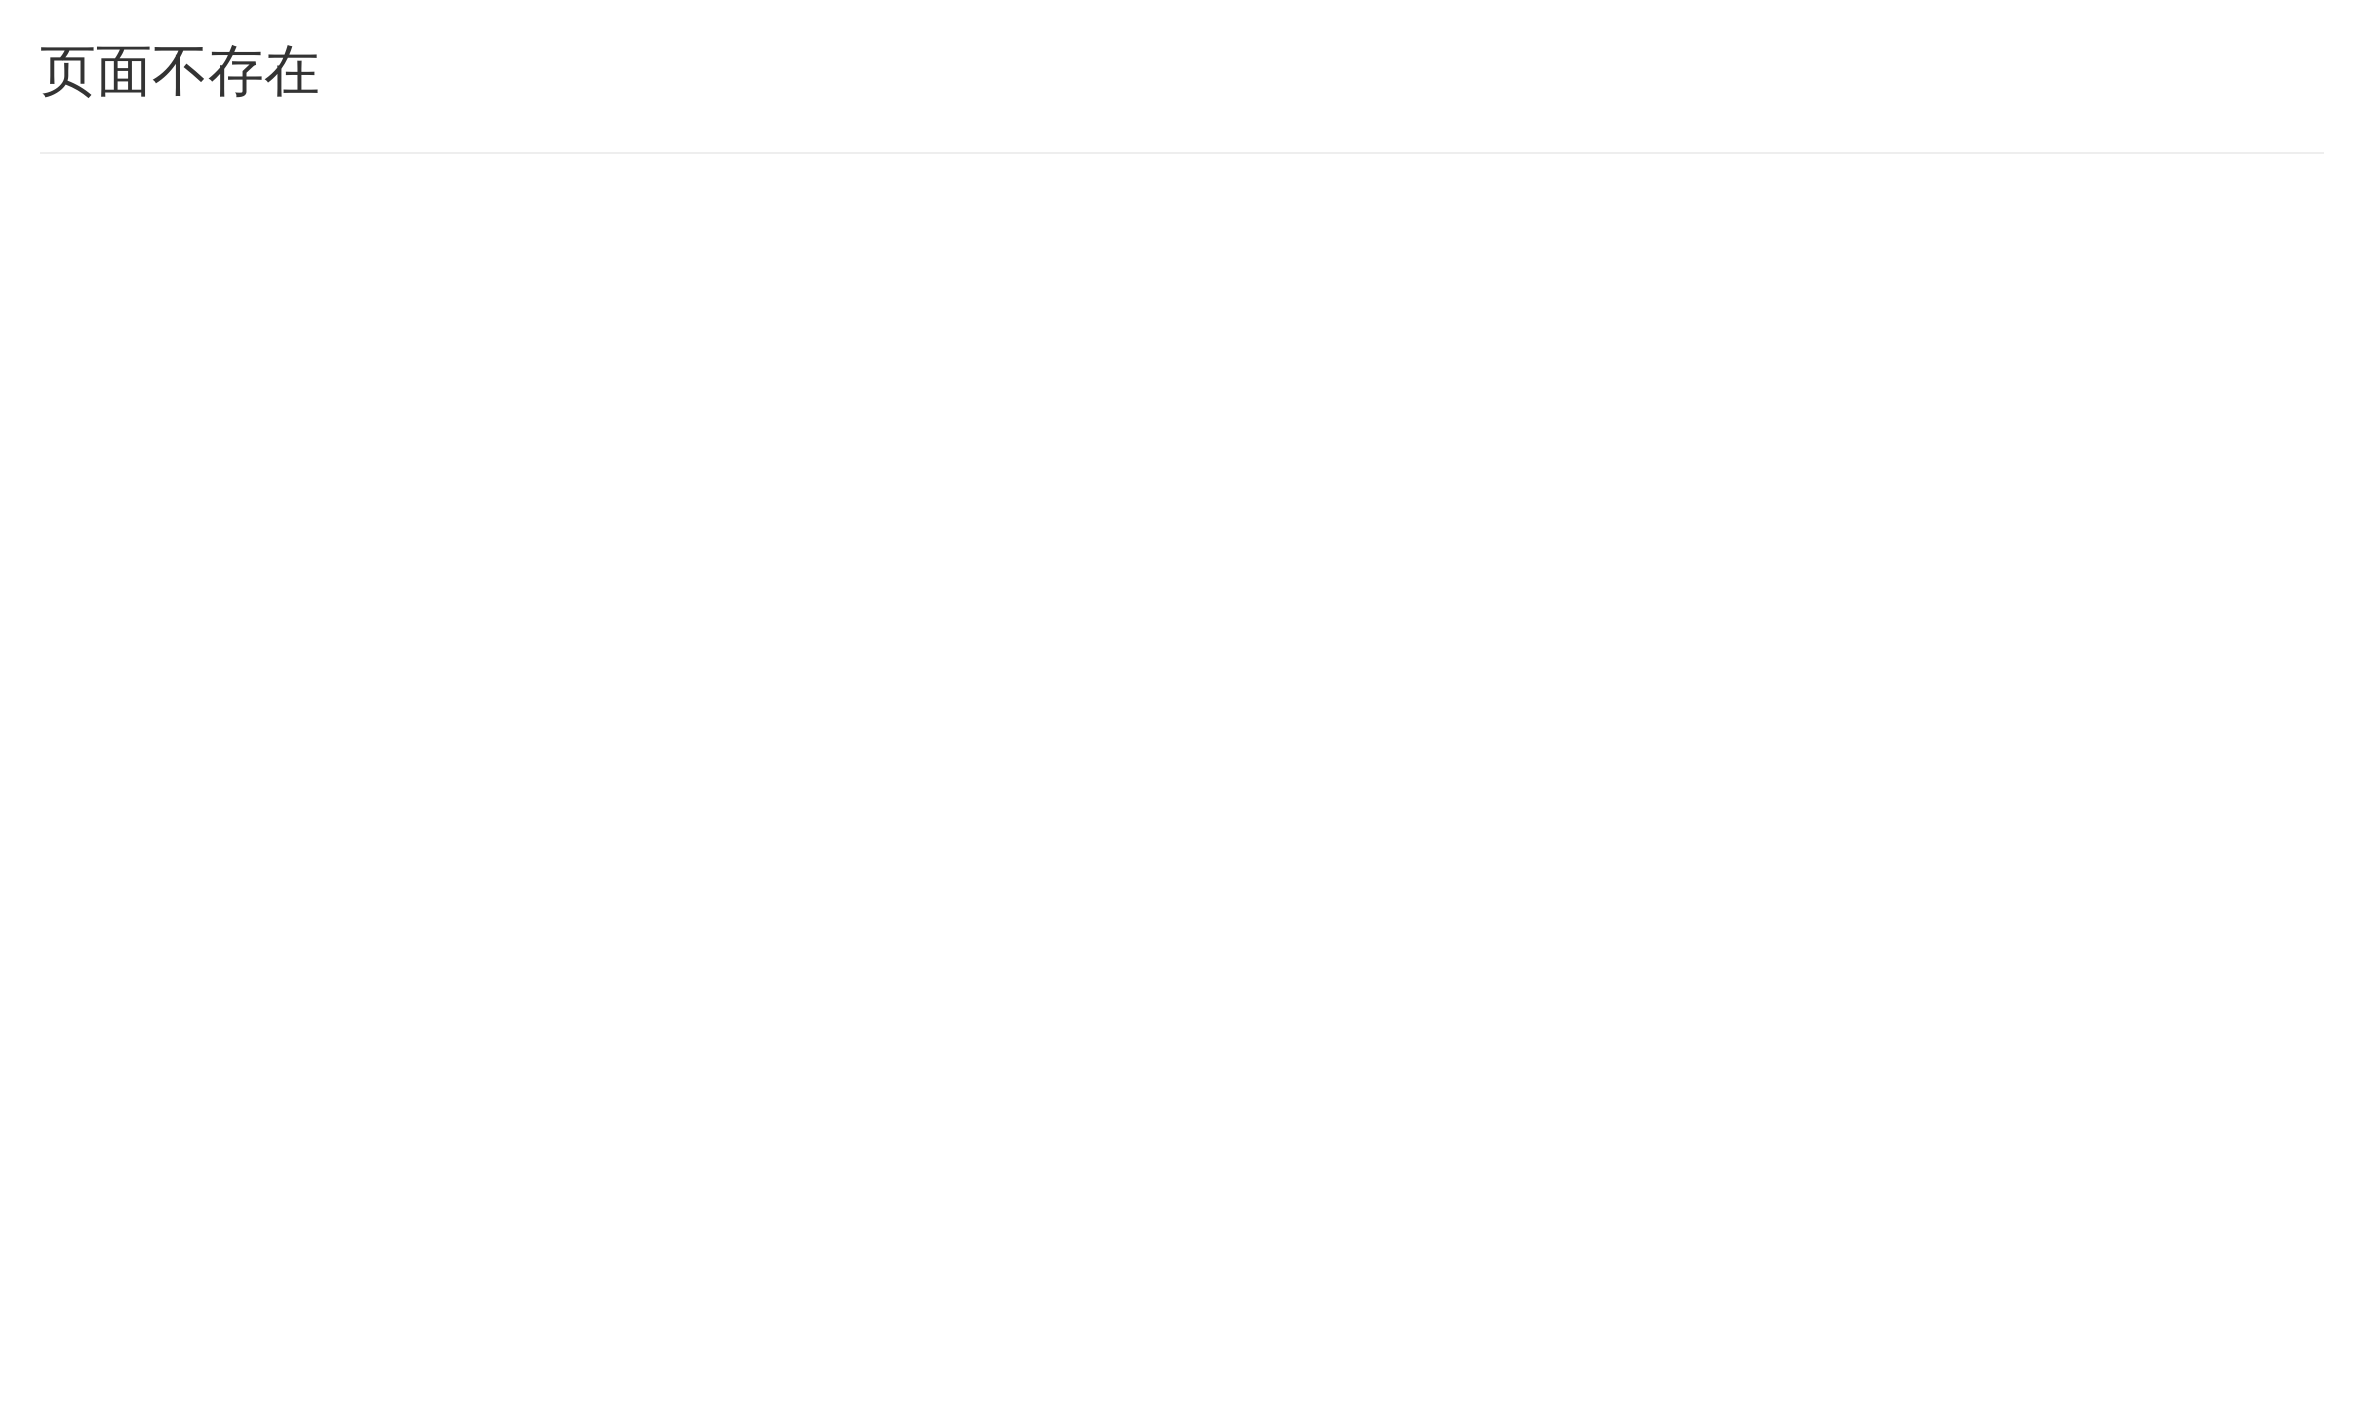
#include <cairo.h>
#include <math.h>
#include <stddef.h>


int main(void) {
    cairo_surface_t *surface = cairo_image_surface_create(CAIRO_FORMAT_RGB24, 2364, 1413);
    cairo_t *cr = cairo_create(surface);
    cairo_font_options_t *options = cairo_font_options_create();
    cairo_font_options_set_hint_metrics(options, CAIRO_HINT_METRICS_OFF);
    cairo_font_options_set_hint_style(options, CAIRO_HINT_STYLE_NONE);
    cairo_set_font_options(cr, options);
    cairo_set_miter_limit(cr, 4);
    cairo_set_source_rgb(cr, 1, 1, 1);
    cairo_paint(cr);
    cairo_select_font_face(cr, "WenQuanYi Zen Hei Medium", CAIRO_FONT_SLANT_NORMAL, CAIRO_FONT_WEIGHT_NORMAL);
    cairo_set_font_size(cr, 56);
    cairo_set_source_rgb(cr, 0.2, 0.2, 0.2);
    cairo_move_to(cr, 40, 90);
    cairo_show_text(cr, "页面不存在");
    cairo_set_source_rgb(cr, 0.933, 0.933, 0.933);
    cairo_rectangle(cr, 40, 152, 2284, 2);
    cairo_fill(cr);
    cairo_surface_write_to_png(surface, "page.png");
    cairo_font_options_destroy(options);
    cairo_destroy(cr);
    cairo_surface_destroy(surface);
    return 0;
}
